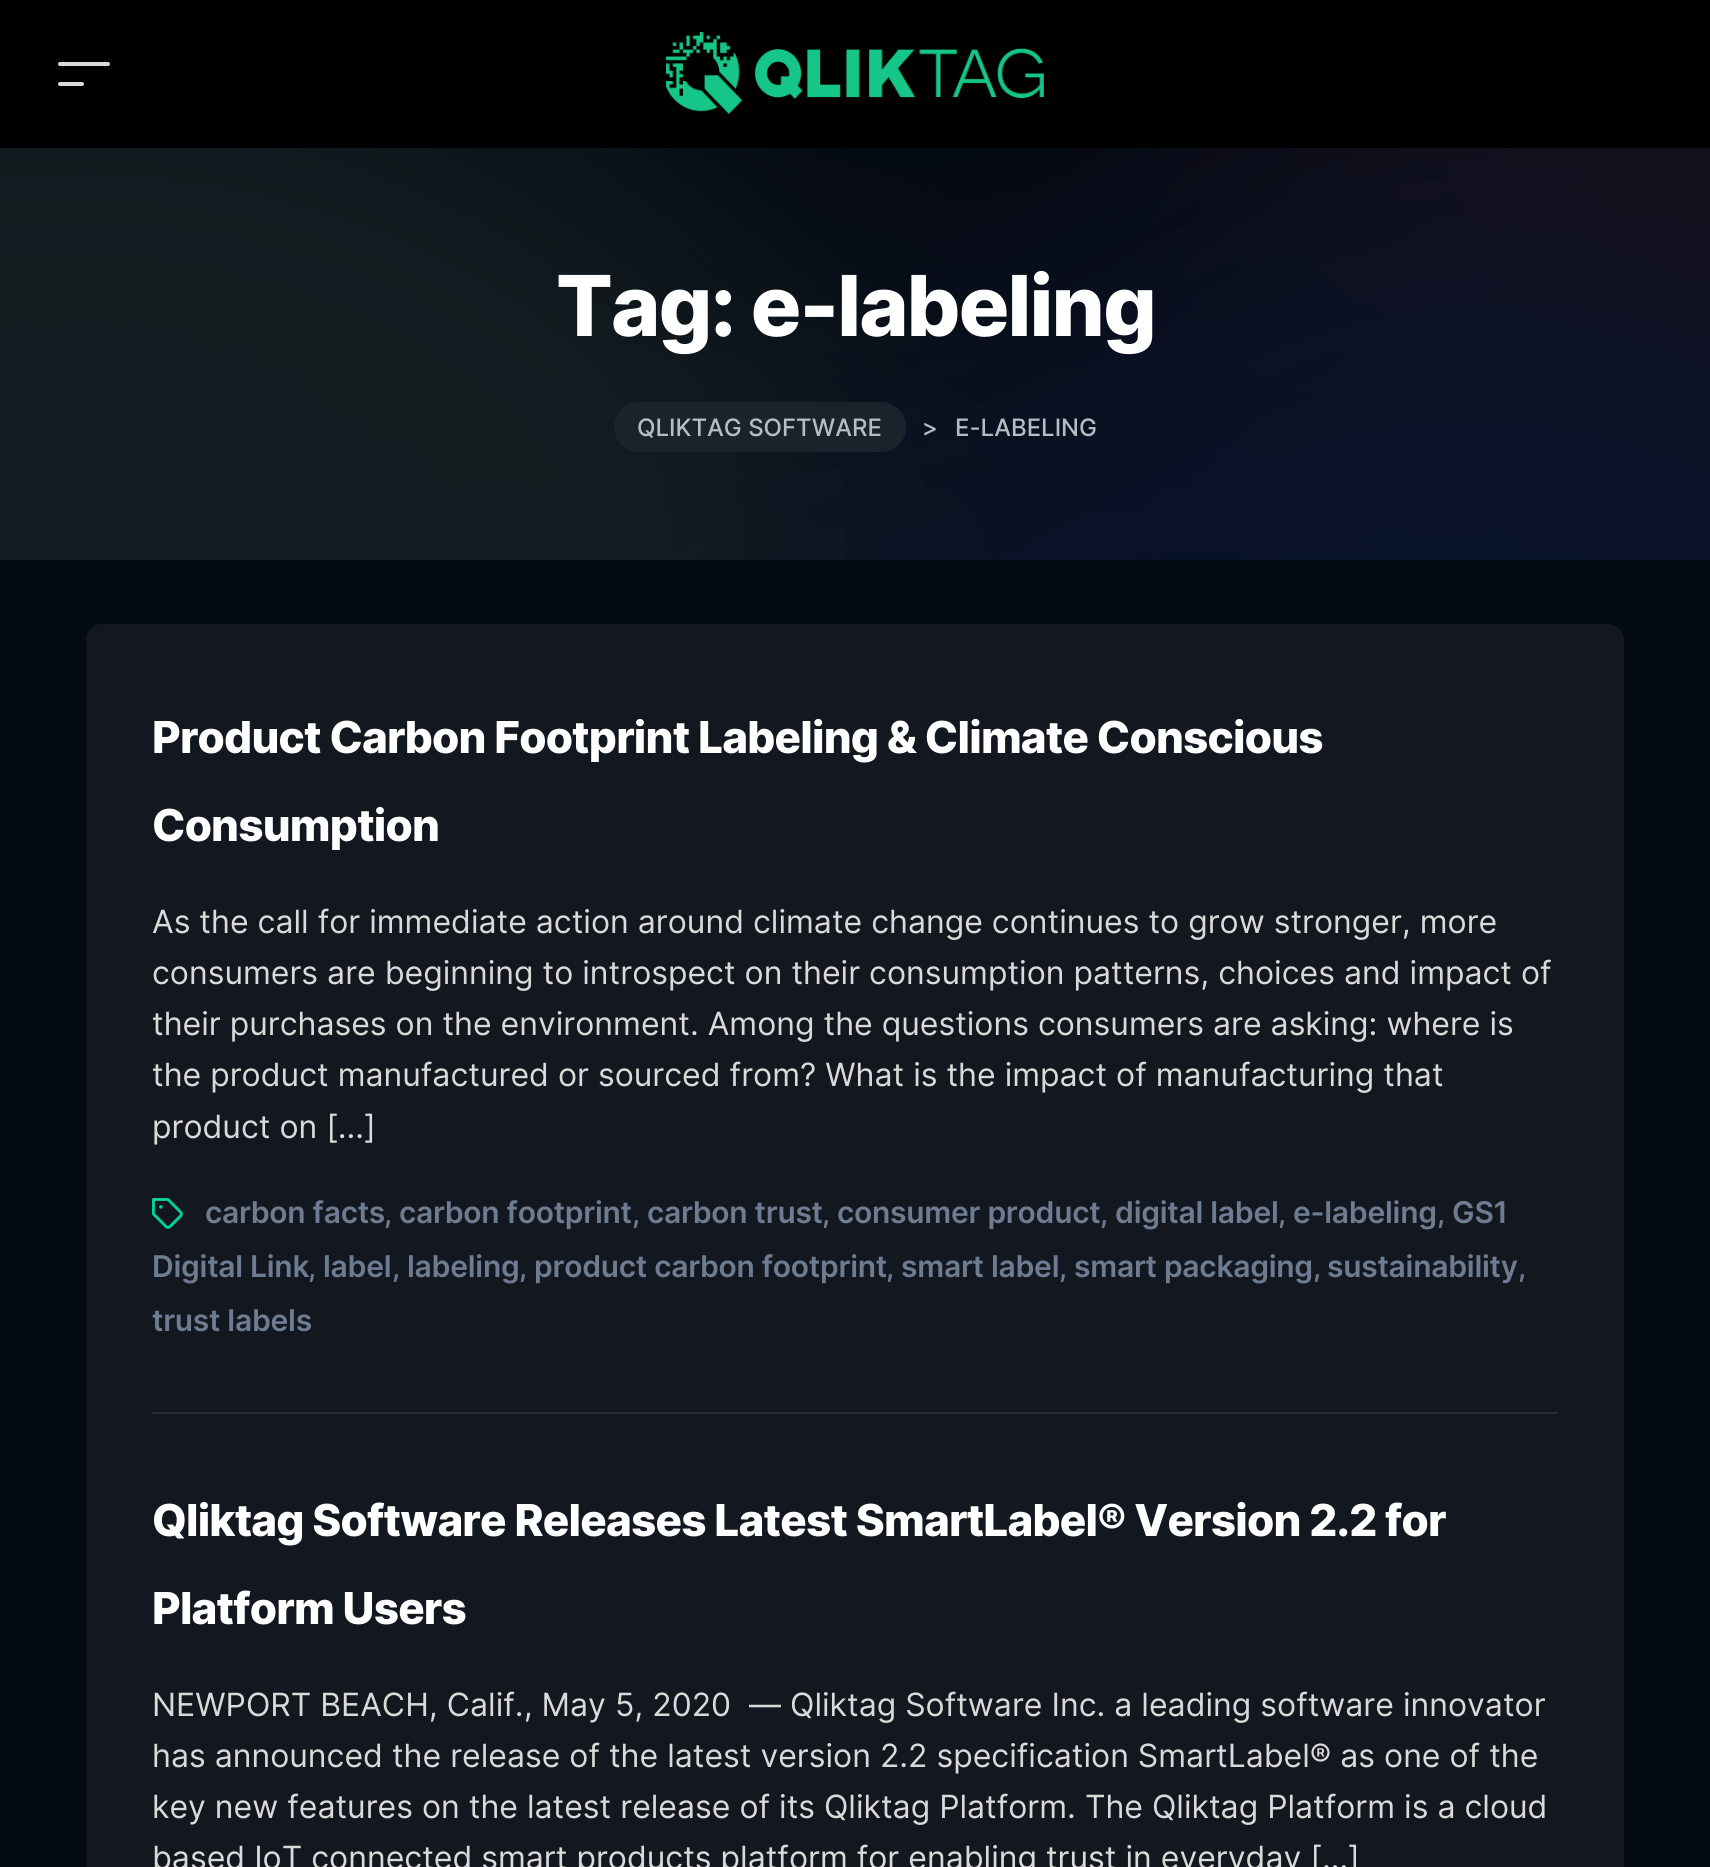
#include <cairo.h>
#include <math.h>
#include <stddef.h>


static void spaced_text(cairo_t *cr, double x, double y, const char *s, double letter, double word) {
    cairo_move_to(cr, x, y);
    while (*s) {
        char ch[5] = {0};
        int n = 0;
        do ch[n++] = *s++; while ((*s & 0xC0) == 0x80);
        cairo_show_text(cr, ch);
        cairo_rel_move_to(cr, letter + word * (*ch == ' '), 0);
    }
}

static void round_rect(cairo_t *cr, double x, double y, double w, double h, double r) {
    cairo_new_sub_path(cr);
    cairo_arc(cr, x + w - r, y + h - r, r, 0, M_PI / 2);
    cairo_arc(cr, x + r, y + h - r, r, M_PI / 2, M_PI);
    cairo_arc(cr, x + r, y + r, r, M_PI, 1.5 * M_PI);
    cairo_arc(cr, x + w - r, y + r, r, 1.5 * M_PI, 2 * M_PI);
    cairo_close_path(cr);
}

static void picture(cairo_t *cr, const char *path, double x, double y, double w, double h) {
    cairo_surface_t *image = cairo_image_surface_create_from_png(path);
    cairo_save(cr);
    cairo_set_source_surface(cr, image, x, y);
    cairo_rectangle(cr, x, y, w, h);
    cairo_fill(cr);
    cairo_restore(cr);
    cairo_surface_destroy(image);
}

int main(void) {
    cairo_surface_t *surface = cairo_image_surface_create(CAIRO_FORMAT_RGB24, 1710, 1867);
    cairo_t *cr = cairo_create(surface);
    cairo_font_options_t *options = cairo_font_options_create();
    cairo_font_options_set_hint_metrics(options, CAIRO_HINT_METRICS_OFF);
    cairo_font_options_set_hint_style(options, CAIRO_HINT_STYLE_NONE);
    cairo_set_font_options(cr, options);
    cairo_set_miter_limit(cr, 4);
    cairo_set_source_rgb(cr, 0.02, 0.043, 0.075);
    cairo_paint(cr);
    cairo_set_source_rgb(cr, 0, 0, 0);
    cairo_rectangle(cr, 0, 0, 1710, 148);
    cairo_fill(cr);
    cairo_set_source_rgb(cr, 0.855, 0.855, 0.855);
    round_rect(cr, 58, 62, 52, 4, 2);
    cairo_fill(cr);
    round_rect(cr, 58, 82, 26, 4, 2);
    cairo_fill(cr);
    picture(cr, "img1.png", 666, 32, 378, 82);
    picture(cr, "img2.png", 0, 148, 1710, 412);
    cairo_select_font_face(cr, "Inter ExtraBold", CAIRO_FONT_SLANT_NORMAL, CAIRO_FONT_WEIGHT_NORMAL);
    cairo_set_font_size(cr, 84);
    cairo_set_source_rgb(cr, 1, 1, 1);
    spaced_text(cr, 556, 336, "Tag: e-labeling", -1.8, 0);
    cairo_set_source_rgb(cr, 0.11, 0.133, 0.169);
    round_rect(cr, 614, 402, 292, 50, 25);
    cairo_fill(cr);
    cairo_select_font_face(cr, "Inter Medium", CAIRO_FONT_SLANT_NORMAL, CAIRO_FONT_WEIGHT_NORMAL);
    cairo_set_font_size(cr, 24);
    cairo_set_source_rgb(cr, 0.714, 0.741, 0.773);
    cairo_move_to(cr, 637, 436);
    cairo_show_text(cr, "QLIKTAG SOFTWARE");
    cairo_move_to(cr, 922, 436);
    cairo_show_text(cr, ">");
    cairo_move_to(cr, 955, 436);
    cairo_show_text(cr, "E-LABELING");
    cairo_set_source_rgb(cr, 0.075, 0.09, 0.122);
    round_rect(cr, 86, 624, 1538, 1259, 16);
    cairo_fill(cr);
    cairo_select_font_face(cr, "Inter ExtraBold", CAIRO_FONT_SLANT_NORMAL, CAIRO_FONT_WEIGHT_NORMAL);
    cairo_set_font_size(cr, 44);
    cairo_set_source_rgb(cr, 1, 1, 1);
    spaced_text(cr, 152, 753, "Product Carbon Footprint Labeling & Climate Conscious", -0.8, 0);
    spaced_text(cr, 152, 841, "Consumption", -0.8, 0);
    cairo_select_font_face(cr, "Inter", CAIRO_FONT_SLANT_NORMAL, CAIRO_FONT_WEIGHT_NORMAL);
    cairo_set_font_size(cr, 32);
    cairo_set_source_rgb(cr, 0.855, 0.855, 0.855);
    cairo_move_to(cr, 152, 933);
    cairo_show_text(cr, "As the call for immediate action around climate change continues to grow stronger, more");
    cairo_move_to(cr, 152, 984);
    cairo_show_text(cr, "consumers are beginning to introspect on their consumption patterns, choices and impact of");
    cairo_move_to(cr, 152, 1035);
    cairo_show_text(cr, "their purchases on the environment. Among the questions consumers are asking: where is");
    cairo_move_to(cr, 152, 1086);
    cairo_show_text(cr, "the product manufactured or sourced from? What is the impact of manufacturing that");
    cairo_move_to(cr, 152, 1138);
    cairo_show_text(cr, "product on […]");
    picture(cr, "img3.png", 152, 1198, 31, 31);
    cairo_select_font_face(cr, "Inter SemiBold", CAIRO_FONT_SLANT_NORMAL, CAIRO_FONT_WEIGHT_NORMAL);
    cairo_set_font_size(cr, 30);
    cairo_set_source_rgb(cr, 0.427, 0.486, 0.565);
    spaced_text(cr, 205, 1223, "carbon facts", -0.25, 0);
    cairo_set_font_size(cr, 28);
    cairo_move_to(cr, 384, 1223);
    cairo_show_text(cr, ",");
    cairo_set_font_size(cr, 30);
    spaced_text(cr, 399, 1223, "carbon footprint", -0.25, 0);
    cairo_set_font_size(cr, 28);
    cairo_move_to(cr, 632, 1223);
    cairo_show_text(cr, ",");
    cairo_set_font_size(cr, 30);
    spaced_text(cr, 647, 1223, "carbon trust", -0.25, 0);
    cairo_set_font_size(cr, 28);
    cairo_move_to(cr, 822, 1223);
    cairo_show_text(cr, ",");
    cairo_set_font_size(cr, 30);
    spaced_text(cr, 837, 1223, "consumer product", -0.25, 0);
    cairo_set_font_size(cr, 28);
    cairo_move_to(cr, 1100, 1223);
    cairo_show_text(cr, ",");
    cairo_set_font_size(cr, 30);
    spaced_text(cr, 1115, 1223, "digital label", -0.25, 0);
    cairo_set_font_size(cr, 28);
    cairo_move_to(cr, 1278, 1223);
    cairo_show_text(cr, ",");
    cairo_set_font_size(cr, 30);
    spaced_text(cr, 1293, 1223, "e-labeling", -0.25, 0);
    cairo_set_font_size(cr, 28);
    cairo_move_to(cr, 1437, 1223);
    cairo_show_text(cr, ",");
    cairo_set_font_size(cr, 30);
    spaced_text(cr, 1452, 1223, "GS1", -0.25, 0);
    spaced_text(cr, 152, 1277, "Digital Link", -0.25, 0);
    cairo_set_font_size(cr, 28);
    cairo_move_to(cr, 308, 1277);
    cairo_show_text(cr, ",");
    cairo_set_font_size(cr, 30);
    spaced_text(cr, 323, 1277, "label", -0.25, 0);
    cairo_set_font_size(cr, 28);
    cairo_move_to(cr, 392, 1277);
    cairo_show_text(cr, ",");
    cairo_set_font_size(cr, 30);
    spaced_text(cr, 407, 1277, "labeling", -0.25, 0);
    cairo_set_font_size(cr, 28);
    cairo_move_to(cr, 519, 1277);
    cairo_show_text(cr, ",");
    cairo_set_font_size(cr, 30);
    spaced_text(cr, 534, 1277, "product carbon footprint", -0.25, 0);
    cairo_set_font_size(cr, 28);
    cairo_move_to(cr, 886, 1277);
    cairo_show_text(cr, ",");
    cairo_set_font_size(cr, 30);
    spaced_text(cr, 901, 1277, "smart label", -0.25, 0);
    cairo_set_font_size(cr, 28);
    cairo_move_to(cr, 1059, 1277);
    cairo_show_text(cr, ",");
    cairo_set_font_size(cr, 30);
    spaced_text(cr, 1074, 1277, "smart packaging", -0.25, 0);
    cairo_set_font_size(cr, 28);
    cairo_move_to(cr, 1313, 1277);
    cairo_show_text(cr, ",");
    cairo_set_font_size(cr, 30);
    spaced_text(cr, 1327, 1277, "sustainability", -0.25, 0);
    cairo_set_font_size(cr, 28);
    cairo_move_to(cr, 1518, 1277);
    cairo_show_text(cr, ",");
    cairo_set_font_size(cr, 30);
    spaced_text(cr, 152, 1331, "trust labels", -0.25, 0);
    cairo_set_source_rgb(cr, 0.153, 0.169, 0.2);
    cairo_rectangle(cr, 152, 1412, 1406, 2);
    cairo_fill(cr);
    cairo_select_font_face(cr, "Inter ExtraBold", CAIRO_FONT_SLANT_NORMAL, CAIRO_FONT_WEIGHT_NORMAL);
    cairo_set_font_size(cr, 44);
    cairo_set_source_rgb(cr, 1, 1, 1);
    spaced_text(cr, 152, 1536, "Qliktag Software Releases Latest SmartLabel® Version 2.2 for", -0.8, 0);
    spaced_text(cr, 152, 1624, "Platform Users", -0.8, 0);
    cairo_select_font_face(cr, "Inter", CAIRO_FONT_SLANT_NORMAL, CAIRO_FONT_WEIGHT_NORMAL);
    cairo_set_font_size(cr, 32);
    cairo_set_source_rgb(cr, 0.855, 0.855, 0.855);
    cairo_move_to(cr, 152, 1716);
    cairo_show_text(cr, "NEWPORT BEACH, Calif., May 5, 2020  — Qliktag Software Inc. a leading software innovator");
    cairo_move_to(cr, 152, 1767);
    cairo_show_text(cr, "has announced the release of the latest version 2.2 specification SmartLabel® as one of the");
    cairo_move_to(cr, 152, 1818);
    cairo_show_text(cr, "key new features on the latest release of its Qliktag Platform. The Qliktag Platform is a cloud");
    cairo_move_to(cr, 152, 1869);
    cairo_show_text(cr, "based IoT connected smart products platform for enabling trust in everyday […]");
    cairo_surface_write_to_png(surface, "page.png");
    cairo_font_options_destroy(options);
    cairo_destroy(cr);
    cairo_surface_destroy(surface);
    return 0;
}
